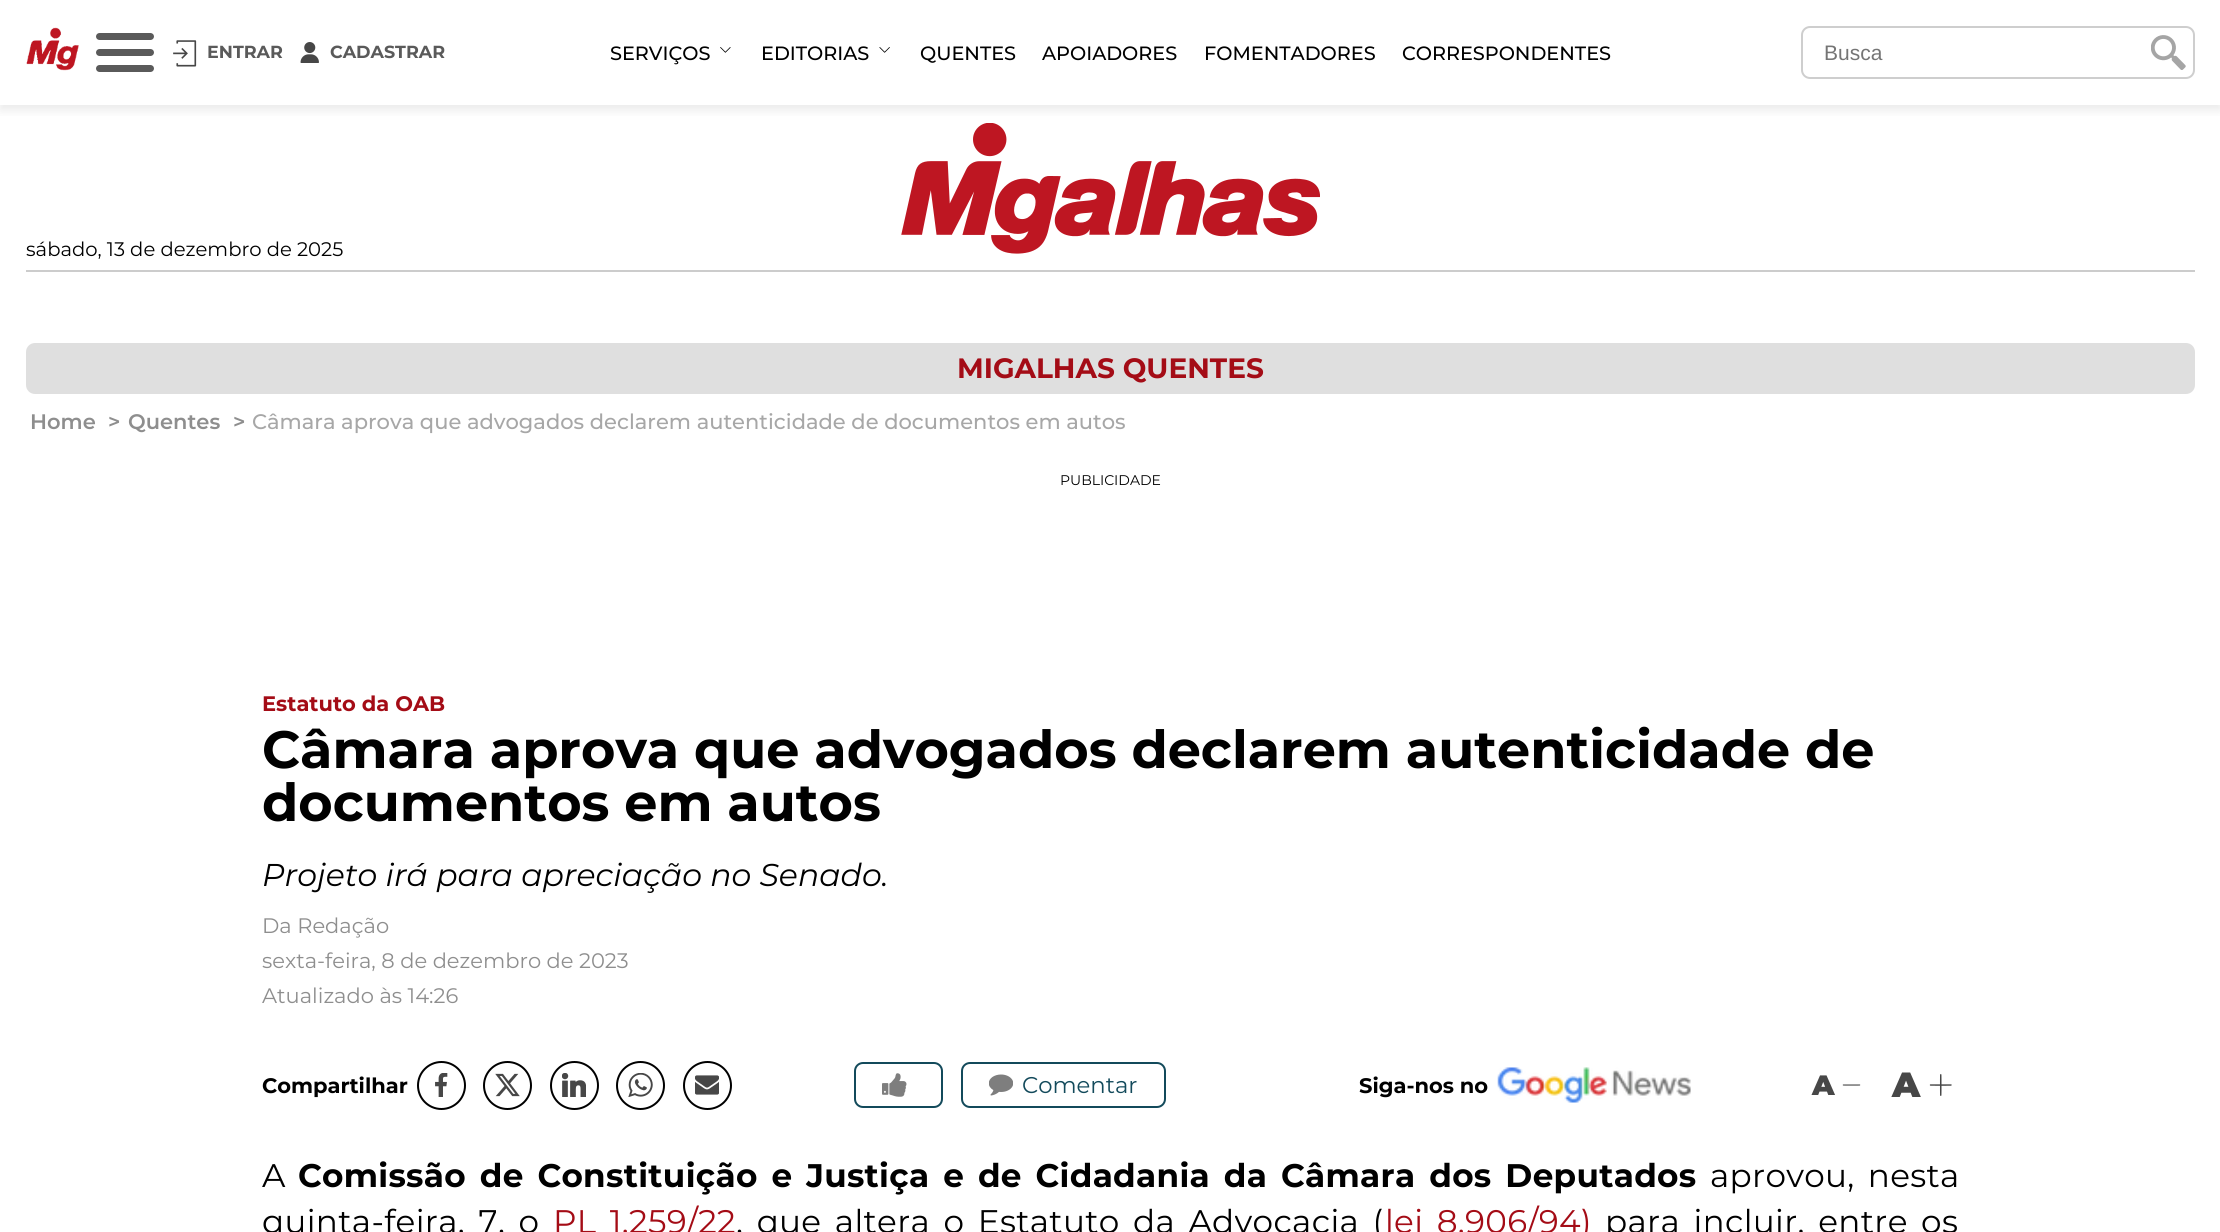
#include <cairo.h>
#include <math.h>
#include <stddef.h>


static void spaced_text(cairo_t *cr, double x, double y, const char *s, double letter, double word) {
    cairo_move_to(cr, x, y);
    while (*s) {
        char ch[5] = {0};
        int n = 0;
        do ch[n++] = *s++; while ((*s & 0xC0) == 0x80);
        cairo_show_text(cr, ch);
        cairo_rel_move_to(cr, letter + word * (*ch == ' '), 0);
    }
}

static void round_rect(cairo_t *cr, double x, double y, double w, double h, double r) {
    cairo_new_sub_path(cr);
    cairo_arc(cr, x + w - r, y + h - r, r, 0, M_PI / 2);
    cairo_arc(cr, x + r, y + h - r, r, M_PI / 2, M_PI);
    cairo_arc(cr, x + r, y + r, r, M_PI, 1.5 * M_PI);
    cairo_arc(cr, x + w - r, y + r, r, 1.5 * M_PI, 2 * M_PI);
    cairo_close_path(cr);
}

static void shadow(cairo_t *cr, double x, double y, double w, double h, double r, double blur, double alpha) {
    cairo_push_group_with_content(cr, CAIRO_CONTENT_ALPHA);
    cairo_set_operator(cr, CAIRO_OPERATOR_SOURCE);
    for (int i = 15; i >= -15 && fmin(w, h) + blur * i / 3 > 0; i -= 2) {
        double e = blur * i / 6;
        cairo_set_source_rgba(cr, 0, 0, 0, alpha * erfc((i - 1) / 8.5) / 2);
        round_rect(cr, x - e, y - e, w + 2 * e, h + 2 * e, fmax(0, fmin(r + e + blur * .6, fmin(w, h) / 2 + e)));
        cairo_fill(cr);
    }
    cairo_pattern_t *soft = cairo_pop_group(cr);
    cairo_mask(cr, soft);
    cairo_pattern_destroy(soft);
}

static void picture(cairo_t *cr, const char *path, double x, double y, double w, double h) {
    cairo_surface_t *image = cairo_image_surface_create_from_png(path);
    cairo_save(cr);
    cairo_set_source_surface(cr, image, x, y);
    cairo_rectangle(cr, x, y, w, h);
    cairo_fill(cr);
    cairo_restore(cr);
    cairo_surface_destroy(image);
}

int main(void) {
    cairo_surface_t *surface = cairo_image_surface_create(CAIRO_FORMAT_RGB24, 2220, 1232);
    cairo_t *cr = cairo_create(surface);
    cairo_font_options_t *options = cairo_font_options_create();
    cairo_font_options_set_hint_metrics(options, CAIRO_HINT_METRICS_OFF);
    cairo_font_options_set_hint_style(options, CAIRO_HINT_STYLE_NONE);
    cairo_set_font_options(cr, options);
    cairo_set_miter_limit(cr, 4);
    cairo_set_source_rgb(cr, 1, 1, 1);
    cairo_paint(cr);
    picture(cr, "img7.png", 901, 123, 419, 131);
    cairo_save(cr);
    cairo_rectangle(cr, 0, 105, 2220, 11);
    cairo_clip(cr);
    cairo_set_source_rgb(cr, 0.478, 0.478, 0.478);
    shadow(cr, 0, 5, 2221, 105, 0, 5, 0.16);
    cairo_restore(cr);
    picture(cr, "img1.png", 26, 27, 53, 44);
    cairo_set_source_rgb(cr, 0.353, 0.353, 0.353);
    round_rect(cr, 96, 33, 58, 7, 3.5);
    cairo_fill(cr);
    round_rect(cr, 96, 49, 58, 7, 3.5);
    cairo_fill(cr);
    round_rect(cr, 96, 65, 58, 7, 3.5);
    cairo_fill(cr);
    picture(cr, "img2.png", 173, 40, 24, 27);
    cairo_select_font_face(cr, "Montserrat", CAIRO_FONT_SLANT_NORMAL, CAIRO_FONT_WEIGHT_BOLD);
    cairo_set_font_size(cr, 17.5);
    cairo_move_to(cr, 207, 58);
    cairo_show_text(cr, "ENTRAR");
    picture(cr, "img3.png", 300, 42, 19, 21);
    cairo_move_to(cr, 330, 58);
    cairo_show_text(cr, "CADASTRAR");
    cairo_select_font_face(cr, "Montserrat Medium", CAIRO_FONT_SLANT_NORMAL, CAIRO_FONT_WEIGHT_NORMAL);
    cairo_set_font_size(cr, 19.25);
    cairo_set_source_rgb(cr, 0, 0, 0);
    cairo_move_to(cr, 610, 60);
    cairo_show_text(cr, "SERVIÇOS");
    picture(cr, "img4.png", 720, 47, 11, 6);
    cairo_move_to(cr, 761, 60);
    cairo_show_text(cr, "EDITORIAS");
    picture(cr, "img5.png", 879, 47, 11, 6);
    cairo_move_to(cr, 920, 60);
    cairo_show_text(cr, "QUENTES");
    cairo_move_to(cr, 1042, 60);
    cairo_show_text(cr, "APOIADORES");
    cairo_move_to(cr, 1204, 60);
    cairo_show_text(cr, "FOMENTADORES");
    cairo_move_to(cr, 1402, 60);
    cairo_show_text(cr, "CORRESPONDENTES");
    round_rect(cr, 1802, 27, 392, 51, 8);
    cairo_set_source_rgb(cr, 0.808, 0.808, 0.808);
    cairo_stroke(cr);
    cairo_select_font_face(cr, "Liberation Sans", CAIRO_FONT_SLANT_NORMAL, CAIRO_FONT_WEIGHT_NORMAL);
    cairo_set_font_size(cr, 21);
    cairo_set_source_rgb(cr, 0.459, 0.459, 0.459);
    cairo_move_to(cr, 1824, 60);
    cairo_show_text(cr, "Busca");
    picture(cr, "img6.png", 2151, 35, 35, 35);
    cairo_set_source_rgb(cr, 0.8, 0.8, 0.8);
    cairo_rectangle(cr, 26, 270, 2169, 2);
    cairo_fill(cr);
    cairo_select_font_face(cr, "Montserrat", CAIRO_FONT_SLANT_NORMAL, CAIRO_FONT_WEIGHT_NORMAL);
    cairo_set_font_size(cr, 19.6);
    cairo_set_source_rgb(cr, 0, 0, 0);
    cairo_move_to(cr, 26, 256);
    cairo_show_text(cr, "sábado, 13 de dezembro de 2025");
    cairo_set_source_rgb(cr, 0.875, 0.875, 0.875);
    round_rect(cr, 26, 343, 2169, 51, 9);
    cairo_fill(cr);
    cairo_select_font_face(cr, "Montserrat", CAIRO_FONT_SLANT_NORMAL, CAIRO_FONT_WEIGHT_BOLD);
    cairo_set_font_size(cr, 28);
    cairo_set_source_rgb(cr, 0.643, 0.047, 0.086);
    cairo_move_to(cr, 957, 378);
    cairo_show_text(cr, "MIGALHAS QUENTES");
    cairo_select_font_face(cr, "Montserrat SemiBold", CAIRO_FONT_SLANT_NORMAL, CAIRO_FONT_WEIGHT_NORMAL);
    cairo_set_font_size(cr, 21);
    cairo_set_source_rgb(cr, 0.557, 0.557, 0.557);
    cairo_move_to(cr, 30, 429);
    cairo_show_text(cr, "Home");
    cairo_move_to(cr, 108, 429);
    cairo_show_text(cr, ">");
    cairo_move_to(cr, 128, 429);
    cairo_show_text(cr, "Quentes");
    cairo_move_to(cr, 233, 429);
    cairo_show_text(cr, ">");
    cairo_select_font_face(cr, "Montserrat Medium", CAIRO_FONT_SLANT_NORMAL, CAIRO_FONT_WEIGHT_NORMAL);
    cairo_set_source_rgb(cr, 0.655, 0.655, 0.655);
    cairo_move_to(cr, 252, 429);
    cairo_show_text(cr, "Câmara aprova que advogados declarem autenticidade de documentos em autos");
    cairo_select_font_face(cr, "Montserrat", CAIRO_FONT_SLANT_NORMAL, CAIRO_FONT_WEIGHT_NORMAL);
    cairo_set_font_size(cr, 14);
    cairo_set_source_rgb(cr, 0, 0, 0);
    cairo_move_to(cr, 1060, 485);
    cairo_show_text(cr, "PUBLICIDADE");
    cairo_select_font_face(cr, "Montserrat", CAIRO_FONT_SLANT_NORMAL, CAIRO_FONT_WEIGHT_BOLD);
    cairo_set_font_size(cr, 21);
    cairo_set_source_rgb(cr, 0.643, 0.047, 0.086);
    cairo_move_to(cr, 262, 711);
    cairo_show_text(cr, "Estatuto da OAB");
    cairo_set_font_size(cr, 52.5);
    cairo_set_source_rgb(cr, 0, 0, 0);
    cairo_move_to(cr, 262, 768);
    cairo_show_text(cr, "Câmara aprova que advogados declarem autenticidade de");
    cairo_move_to(cr, 262, 821);
    cairo_show_text(cr, "documentos em autos");
    cairo_select_font_face(cr, "Montserrat", CAIRO_FONT_SLANT_ITALIC, CAIRO_FONT_WEIGHT_NORMAL);
    cairo_set_font_size(cr, 31.5);
    cairo_move_to(cr, 262, 886);
    cairo_show_text(cr, "Projeto irá para apreciação no Senado.");
    cairo_select_font_face(cr, "Montserrat", CAIRO_FONT_SLANT_NORMAL, CAIRO_FONT_WEIGHT_NORMAL);
    cairo_set_font_size(cr, 21);
    cairo_set_source_rgb(cr, 0.557, 0.557, 0.557);
    cairo_move_to(cr, 262, 933);
    cairo_show_text(cr, "Da Redação");
    cairo_move_to(cr, 262, 968);
    cairo_show_text(cr, "sexta-feira, 8 de dezembro de 2023");
    cairo_move_to(cr, 262, 1003);
    cairo_show_text(cr, "Atualizado às 14:26");
    cairo_select_font_face(cr, "Montserrat", CAIRO_FONT_SLANT_NORMAL, CAIRO_FONT_WEIGHT_BOLD);
    cairo_set_source_rgb(cr, 0, 0, 0);
    cairo_move_to(cr, 262, 1093);
    cairo_show_text(cr, "Compartilhar");
    cairo_new_path(cr);
    cairo_arc(cr, 441.5, 1085.5, 23.5, 0, 2 * M_PI);
    cairo_stroke(cr);
    picture(cr, "img8.png", 435, 1073, 13, 24);
    cairo_arc(cr, 507.5, 1085.5, 23.5, 0, 2 * M_PI);
    cairo_stroke(cr);
    picture(cr, "img9.png", 495, 1073, 25, 24);
    cairo_arc(cr, 574.5, 1085.5, 23.5, 0, 2 * M_PI);
    cairo_stroke(cr);
    picture(cr, "img10.png", 562, 1073, 24, 24);
    cairo_arc(cr, 640.5, 1085.5, 23.5, 0, 2 * M_PI);
    cairo_stroke(cr);
    picture(cr, "img11.png", 628, 1073, 25, 24);
    cairo_arc(cr, 707.5, 1085.5, 23.5, 0, 2 * M_PI);
    cairo_stroke(cr);
    picture(cr, "img12.png", 695, 1075, 24, 20);
    round_rect(cr, 855, 1063, 87, 44, 8);
    cairo_set_source_rgb(cr, 0.078, 0.29, 0.357);
    cairo_stroke(cr);
    picture(cr, "img13.png", 882, 1073, 25, 24);
    round_rect(cr, 962, 1063, 203, 44, 8);
    cairo_stroke(cr);
    picture(cr, "img14.png", 989, 1074, 24, 22);
    cairo_select_font_face(cr, "Montserrat", CAIRO_FONT_SLANT_NORMAL, CAIRO_FONT_WEIGHT_NORMAL);
    cairo_set_font_size(cr, 22.75);
    cairo_move_to(cr, 1022, 1093);
    cairo_show_text(cr, "Comentar");
    cairo_select_font_face(cr, "Montserrat", CAIRO_FONT_SLANT_NORMAL, CAIRO_FONT_WEIGHT_BOLD);
    cairo_set_font_size(cr, 21);
    cairo_set_source_rgb(cr, 0, 0, 0);
    cairo_move_to(cr, 1359, 1093);
    cairo_show_text(cr, "Siga-nos no");
    picture(cr, "img15.png", 1497, 1067, 194, 36);
    cairo_select_font_face(cr, "Montserrat Black", CAIRO_FONT_SLANT_NORMAL, CAIRO_FONT_WEIGHT_NORMAL);
    cairo_set_font_size(cr, 28);
    cairo_set_source_rgb(cr, 0.278, 0.278, 0.278);
    cairo_move_to(cr, 1812, 1095);
    cairo_show_text(cr, "A");
    picture(cr, "img16.png", 1842, 1084, 19, 2);
    cairo_set_font_size(cr, 35);
    cairo_move_to(cr, 1892, 1097);
    cairo_show_text(cr, "A");
    picture(cr, "img17.png", 1929, 1074, 23, 22);
    cairo_select_font_face(cr, "Montserrat", CAIRO_FONT_SLANT_NORMAL, CAIRO_FONT_WEIGHT_NORMAL);
    cairo_set_font_size(cr, 32.65);
    cairo_set_source_rgb(cr, 0, 0, 0);
    spaced_text(cr, 262, 1187, "A", 0.33, 0);
    cairo_select_font_face(cr, "Montserrat", CAIRO_FONT_SLANT_NORMAL, CAIRO_FONT_WEIGHT_BOLD);
    spaced_text(cr, 298, 1187, "Comissão de Constituição e Justiça e de Cidadania da Câmara dos Deputados", 0.33, 4.25);
    cairo_select_font_face(cr, "Montserrat", CAIRO_FONT_SLANT_NORMAL, CAIRO_FONT_WEIGHT_NORMAL);
    spaced_text(cr, 1710, 1187, "aprovou, nesta", 0.33, 4.25);
    spaced_text(cr, 262, 1233, "quinta-feira, 7, o", 0.33, 4.5);
    cairo_set_source_rgb(cr, 0.643, 0.047, 0.086);
    spaced_text(cr, 553, 1233, "PL 1.259/22", 0.33, 4.5);
    cairo_set_source_rgb(cr, 0, 0, 0);
    spaced_text(cr, 736, 1233, ", que altera o Estatuto da Advocacia (", 0.33, 4.5);
    cairo_set_source_rgb(cr, 0.643, 0.047, 0.086);
    spaced_text(cr, 1385, 1233, "lei 8.906/94)", 0.33, 4.5);
    cairo_set_source_rgb(cr, 0, 0, 0);
    spaced_text(cr, 1605, 1233, "para incluir, entre os", 0.33, 4.5);
    cairo_surface_write_to_png(surface, "page.png");
    cairo_font_options_destroy(options);
    cairo_destroy(cr);
    cairo_surface_destroy(surface);
    return 0;
}
